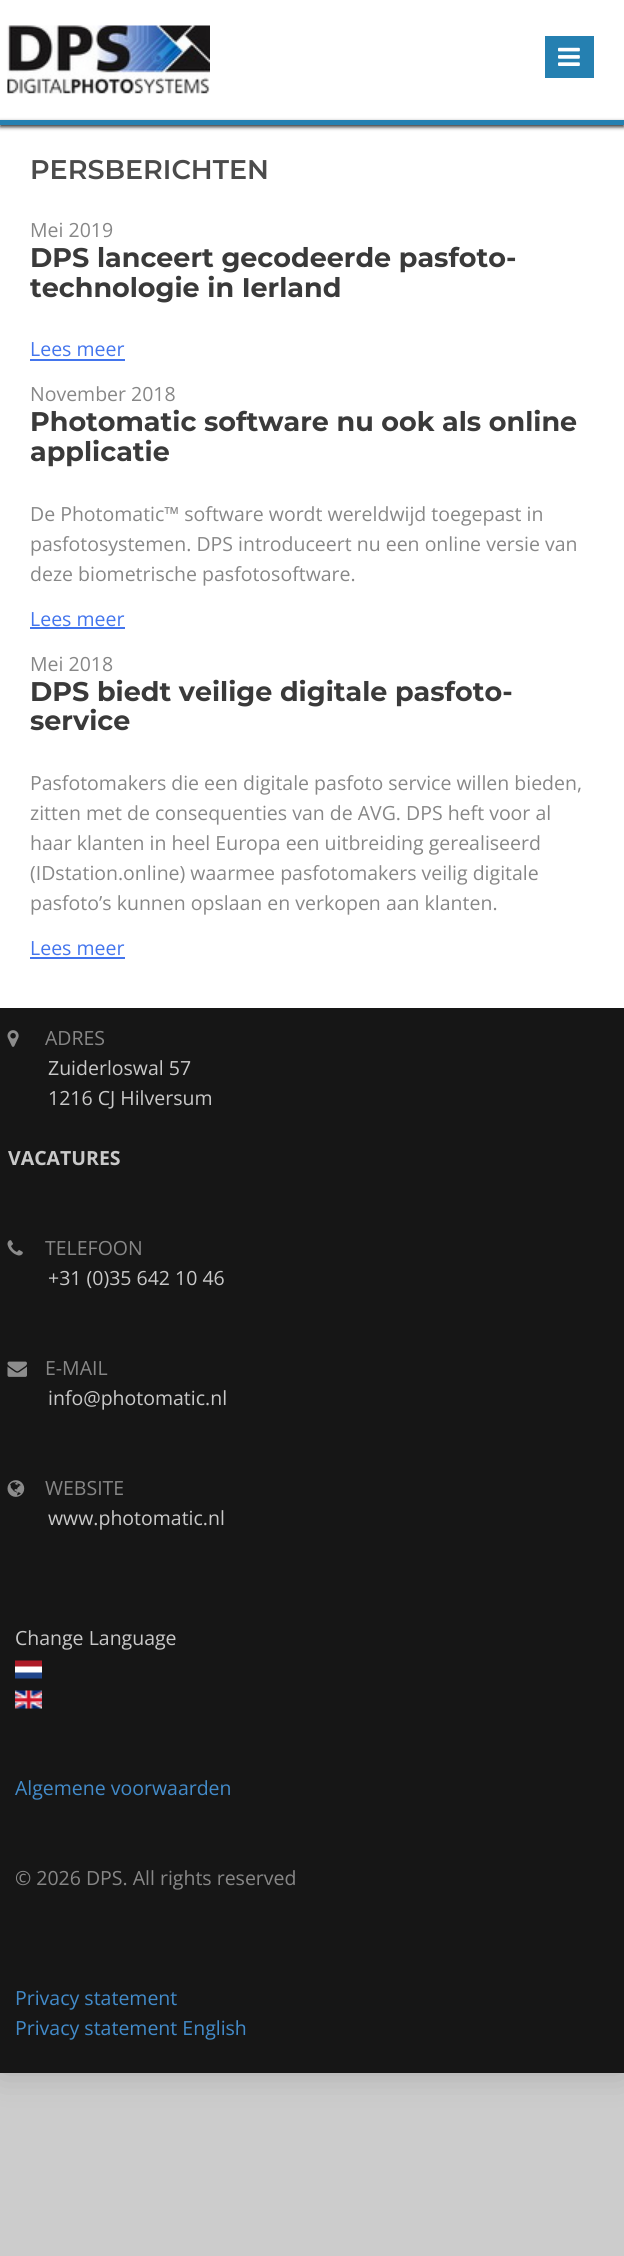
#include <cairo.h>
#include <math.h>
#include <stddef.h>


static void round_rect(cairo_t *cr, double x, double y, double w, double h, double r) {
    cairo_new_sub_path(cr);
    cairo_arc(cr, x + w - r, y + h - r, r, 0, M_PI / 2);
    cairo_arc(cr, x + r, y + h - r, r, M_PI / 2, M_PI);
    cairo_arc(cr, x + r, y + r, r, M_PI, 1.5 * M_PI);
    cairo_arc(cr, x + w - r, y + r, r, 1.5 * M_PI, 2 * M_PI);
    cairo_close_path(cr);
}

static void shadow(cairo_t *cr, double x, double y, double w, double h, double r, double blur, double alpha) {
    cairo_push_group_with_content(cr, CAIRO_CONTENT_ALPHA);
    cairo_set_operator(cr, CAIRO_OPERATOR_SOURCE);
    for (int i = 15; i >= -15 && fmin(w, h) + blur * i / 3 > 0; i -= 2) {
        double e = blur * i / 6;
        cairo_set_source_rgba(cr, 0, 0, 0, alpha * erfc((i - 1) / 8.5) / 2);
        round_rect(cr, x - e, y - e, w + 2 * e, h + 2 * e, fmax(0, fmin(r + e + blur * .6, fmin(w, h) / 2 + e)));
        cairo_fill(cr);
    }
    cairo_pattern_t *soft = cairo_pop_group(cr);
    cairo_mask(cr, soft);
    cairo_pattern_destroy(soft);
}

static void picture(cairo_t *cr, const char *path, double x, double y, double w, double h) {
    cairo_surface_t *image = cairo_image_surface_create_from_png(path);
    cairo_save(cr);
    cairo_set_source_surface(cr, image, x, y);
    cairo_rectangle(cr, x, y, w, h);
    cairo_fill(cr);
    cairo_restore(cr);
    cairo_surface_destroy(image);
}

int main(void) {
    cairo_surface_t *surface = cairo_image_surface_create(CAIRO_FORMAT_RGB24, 624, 2256);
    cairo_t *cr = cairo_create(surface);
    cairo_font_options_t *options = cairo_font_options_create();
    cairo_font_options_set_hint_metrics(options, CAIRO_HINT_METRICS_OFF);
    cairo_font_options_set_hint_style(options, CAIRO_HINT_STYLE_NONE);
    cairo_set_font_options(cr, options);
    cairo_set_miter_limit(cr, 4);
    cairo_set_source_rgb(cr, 0.8, 0.8, 0.8);
    cairo_paint(cr);
    cairo_set_source_rgb(cr, 0, 0, 0);
    shadow(cr, 0, 0, 624, 2073, 0, 19, 0.16);
    cairo_set_source_rgb(cr, 1, 1, 1);
    cairo_rectangle(cr, 0, 0, 624, 1008);
    cairo_fill(cr);
    cairo_set_source_rgb(cr, 0.145, 0.502, 0.694);
    cairo_rectangle(cr, 0, 120, 624, 5);
    cairo_fill(cr);
    picture(cr, "img1.png", 7, 25, 203, 69);
    cairo_rectangle(cr, 545, 36, 49, 42);
    cairo_fill(cr);
    picture(cr, "img2.png", 558, 47, 22, 19);
    cairo_save(cr);
    cairo_set_fill_rule(cr, CAIRO_FILL_RULE_EVEN_ODD);
    cairo_new_path(cr);
    cairo_move_to(cr, 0, 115);
    cairo_line_to(cr, 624, 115);
    cairo_line_to(cr, 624, 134);
    cairo_line_to(cr, 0, 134);
    cairo_close_path(cr);
    cairo_move_to(cr, 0, 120);
    cairo_line_to(cr, 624, 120);
    cairo_line_to(cr, 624, 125);
    cairo_line_to(cr, 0, 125);
    cairo_close_path(cr);
    cairo_clip(cr);
    cairo_set_source_rgb(cr, 0.2, 0.2, 0.2);
    shadow(cr, 0, 122, 624, 5, 0, 2, 1);
    cairo_restore(cr);
    cairo_select_font_face(cr, "Montserrat SemiBold", CAIRO_FONT_SLANT_NORMAL, CAIRO_FONT_WEIGHT_NORMAL);
    cairo_set_font_size(cr, 27);
    cairo_set_source_rgb(cr, 0.294, 0.294, 0.294);
    cairo_move_to(cr, 30, 179);
    cairo_show_text(cr, "PERSBERICHTEN");
    cairo_select_font_face(cr, "Open Sans", CAIRO_FONT_SLANT_NORMAL, CAIRO_FONT_WEIGHT_NORMAL);
    cairo_set_font_size(cr, 19.5);
    cairo_set_source_rgb(cr, 0.529, 0.529, 0.529);
    cairo_move_to(cr, 30, 237);
    cairo_show_text(cr, "Mei 2019");
    cairo_select_font_face(cr, "Montserrat", CAIRO_FONT_SLANT_NORMAL, CAIRO_FONT_WEIGHT_BOLD);
    cairo_set_font_size(cr, 27);
    cairo_set_source_rgb(cr, 0.227, 0.227, 0.227);
    cairo_move_to(cr, 30, 267);
    cairo_show_text(cr, "DPS lanceert gecodeerde pasfoto-");
    cairo_move_to(cr, 30, 297);
    cairo_show_text(cr, "technologie in Ierland");
    cairo_select_font_face(cr, "Open Sans", CAIRO_FONT_SLANT_NORMAL, CAIRO_FONT_WEIGHT_NORMAL);
    cairo_set_font_size(cr, 19.5);
    cairo_set_source_rgb(cr, 0.263, 0.459, 0.929);
    cairo_move_to(cr, 30, 356);
    cairo_show_text(cr, "Lees meer");
    cairo_rectangle(cr, 30, 359, 95, 2);
    cairo_fill(cr);
    cairo_set_source_rgb(cr, 0.529, 0.529, 0.529);
    cairo_move_to(cr, 30, 401);
    cairo_show_text(cr, "November 2018");
    cairo_select_font_face(cr, "Montserrat", CAIRO_FONT_SLANT_NORMAL, CAIRO_FONT_WEIGHT_BOLD);
    cairo_set_font_size(cr, 27);
    cairo_set_source_rgb(cr, 0.227, 0.227, 0.227);
    cairo_move_to(cr, 30, 431);
    cairo_show_text(cr, "Photomatic software nu ook als online");
    cairo_move_to(cr, 30, 461);
    cairo_show_text(cr, "applicatie");
    cairo_select_font_face(cr, "Open Sans", CAIRO_FONT_SLANT_NORMAL, CAIRO_FONT_WEIGHT_NORMAL);
    cairo_set_font_size(cr, 19.5);
    cairo_set_source_rgb(cr, 0.529, 0.529, 0.529);
    cairo_move_to(cr, 30, 521);
    cairo_show_text(cr, "De Photomatic™ software wordt wereldwijd toegepast in");
    cairo_move_to(cr, 30, 551);
    cairo_show_text(cr, "pasfotosystemen. DPS introduceert nu een online versie van");
    cairo_move_to(cr, 30, 581);
    cairo_show_text(cr, "deze biometrische pasfotosoftware.");
    cairo_set_source_rgb(cr, 0.263, 0.459, 0.929);
    cairo_move_to(cr, 30, 626);
    cairo_show_text(cr, "Lees meer");
    cairo_rectangle(cr, 30, 627, 95, 2);
    cairo_fill(cr);
    cairo_set_source_rgb(cr, 0.529, 0.529, 0.529);
    cairo_move_to(cr, 30, 671);
    cairo_show_text(cr, "Mei 2018");
    cairo_select_font_face(cr, "Montserrat", CAIRO_FONT_SLANT_NORMAL, CAIRO_FONT_WEIGHT_BOLD);
    cairo_set_font_size(cr, 27);
    cairo_set_source_rgb(cr, 0.227, 0.227, 0.227);
    cairo_move_to(cr, 30, 701);
    cairo_show_text(cr, "DPS biedt veilige digitale pasfoto-");
    cairo_move_to(cr, 30, 730);
    cairo_show_text(cr, "service");
    cairo_select_font_face(cr, "Open Sans", CAIRO_FONT_SLANT_NORMAL, CAIRO_FONT_WEIGHT_NORMAL);
    cairo_set_font_size(cr, 19.5);
    cairo_set_source_rgb(cr, 0.529, 0.529, 0.529);
    cairo_move_to(cr, 30, 790);
    cairo_show_text(cr, "Pasfotomakers die een digitale pasfoto service willen bieden,");
    cairo_move_to(cr, 30, 820);
    cairo_show_text(cr, "zitten met de consequenties van de AVG. DPS heft voor al");
    cairo_move_to(cr, 30, 850);
    cairo_show_text(cr, "haar klanten in heel Europa een uitbreiding gerealiseerd");
    cairo_move_to(cr, 30, 880);
    cairo_show_text(cr, "(IDstation.online) waarmee pasfotomakers veilig digitale");
    cairo_move_to(cr, 30, 910);
    cairo_show_text(cr, "pasfoto’s kunnen opslaan en verkopen aan klanten.");
    cairo_set_source_rgb(cr, 0.263, 0.459, 0.929);
    cairo_move_to(cr, 30, 955);
    cairo_show_text(cr, "Lees meer");
    cairo_rectangle(cr, 30, 957, 95, 2);
    cairo_fill(cr);
    cairo_set_source_rgb(cr, 0.086, 0.086, 0.086);
    cairo_rectangle(cr, 0, 1008, 624, 1065);
    cairo_fill(cr);
    picture(cr, "img3.png", 7, 1030, 12, 17);
    cairo_set_source_rgb(cr, 0.529, 0.529, 0.529);
    cairo_move_to(cr, 45, 1045);
    cairo_show_text(cr, "ADRES");
    cairo_set_source_rgb(cr, 0.788, 0.788, 0.788);
    cairo_move_to(cr, 48, 1075);
    cairo_show_text(cr, "Zuiderloswal 57");
    cairo_move_to(cr, 48, 1105);
    cairo_show_text(cr, "1216 CJ Hilversum");
    cairo_select_font_face(cr, "Open Sans", CAIRO_FONT_SLANT_NORMAL, CAIRO_FONT_WEIGHT_BOLD);
    cairo_move_to(cr, 8, 1165);
    cairo_show_text(cr, "VACATURES");
    picture(cr, "img4.png", 7, 1240, 16, 16);
    cairo_select_font_face(cr, "Open Sans", CAIRO_FONT_SLANT_NORMAL, CAIRO_FONT_WEIGHT_NORMAL);
    cairo_set_source_rgb(cr, 0.529, 0.529, 0.529);
    cairo_move_to(cr, 45, 1255);
    cairo_show_text(cr, "TELEFOON");
    cairo_set_source_rgb(cr, 0.788, 0.788, 0.788);
    cairo_move_to(cr, 48, 1285);
    cairo_show_text(cr, "+31 (0)35 642 10 46");
    picture(cr, "img5.png", 7, 1361, 20, 16);
    cairo_set_source_rgb(cr, 0.529, 0.529, 0.529);
    cairo_move_to(cr, 45, 1375);
    cairo_show_text(cr, "E-MAIL");
    cairo_set_source_rgb(cr, 0.788, 0.788, 0.788);
    cairo_move_to(cr, 48, 1405);
    cairo_show_text(cr, "info@photomatic.nl");
    picture(cr, "img6.png", 7, 1480, 18, 17);
    cairo_set_source_rgb(cr, 0.529, 0.529, 0.529);
    cairo_move_to(cr, 45, 1495);
    cairo_show_text(cr, "WEBSITE");
    cairo_set_source_rgb(cr, 0.788, 0.788, 0.788);
    cairo_move_to(cr, 48, 1525);
    cairo_show_text(cr, "www.photomatic.nl");
    cairo_move_to(cr, 15, 1645);
    cairo_show_text(cr, "Change Language");
    picture(cr, "img7.png", 15, 1660, 27, 19);
    picture(cr, "img8.png", 15, 1690, 27, 19);
    cairo_set_source_rgb(cr, 0.259, 0.545, 0.792);
    cairo_move_to(cr, 15, 1795);
    cairo_show_text(cr, "Algemene voorwaarden");
    cairo_set_source_rgb(cr, 0.529, 0.529, 0.529);
    cairo_move_to(cr, 15, 1885);
    cairo_show_text(cr, "© 2026 DPS. All rights reserved");
    cairo_set_source_rgb(cr, 0.259, 0.545, 0.792);
    cairo_move_to(cr, 15, 2005);
    cairo_show_text(cr, "Privacy statement");
    cairo_move_to(cr, 15, 2035);
    cairo_show_text(cr, "Privacy statement English");
    cairo_surface_write_to_png(surface, "page.png");
    cairo_font_options_destroy(options);
    cairo_destroy(cr);
    cairo_surface_destroy(surface);
    return 0;
}
